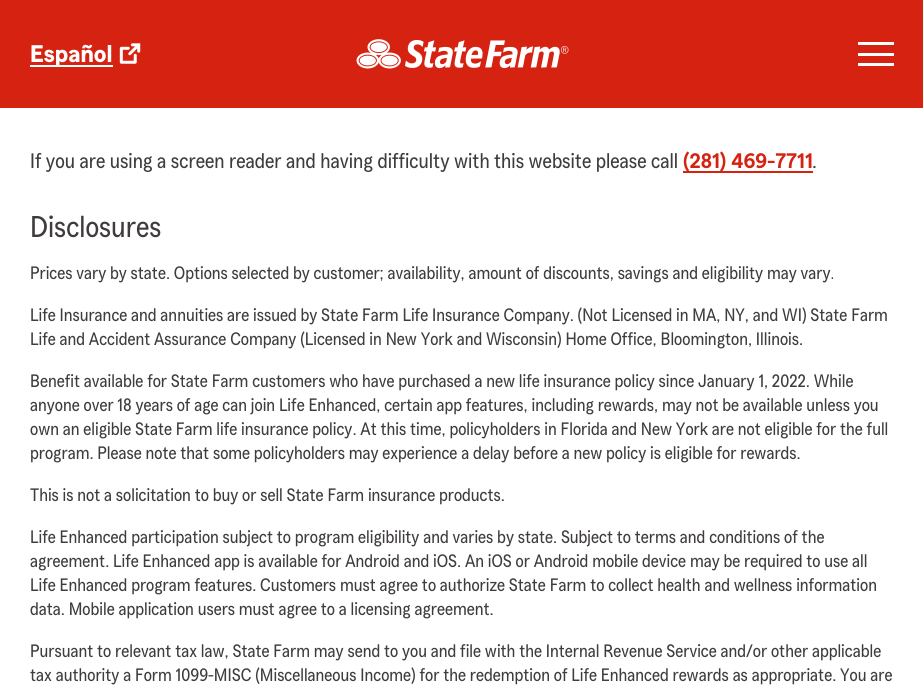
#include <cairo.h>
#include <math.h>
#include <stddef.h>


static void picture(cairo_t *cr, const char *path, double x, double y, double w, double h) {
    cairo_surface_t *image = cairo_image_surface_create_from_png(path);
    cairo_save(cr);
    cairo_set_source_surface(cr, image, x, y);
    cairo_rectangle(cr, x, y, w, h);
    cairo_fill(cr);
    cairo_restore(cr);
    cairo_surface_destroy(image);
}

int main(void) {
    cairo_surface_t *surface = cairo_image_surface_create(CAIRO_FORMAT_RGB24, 923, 692);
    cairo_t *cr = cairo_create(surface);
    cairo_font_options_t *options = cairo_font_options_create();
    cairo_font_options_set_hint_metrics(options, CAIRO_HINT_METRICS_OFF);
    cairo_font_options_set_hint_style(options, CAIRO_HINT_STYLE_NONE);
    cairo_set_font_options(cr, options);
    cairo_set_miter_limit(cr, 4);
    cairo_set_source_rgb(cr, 1, 1, 1);
    cairo_paint(cr);
    cairo_set_source_rgb(cr, 0.839, 0.137, 0.067);
    cairo_rectangle(cr, 0, 0, 923, 108);
    cairo_fill(cr);
    cairo_set_source_rgb(cr, 1, 1, 1);
    cairo_rectangle(cr, 30, 65, 83, 2);
    cairo_fill(cr);
    cairo_select_font_face(cr, "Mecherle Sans", CAIRO_FONT_SLANT_NORMAL, CAIRO_FONT_WEIGHT_BOLD);
    cairo_set_font_size(cr, 24);
    cairo_move_to(cr, 30, 62);
    cairo_show_text(cr, "Español");
    picture(cr, "img1.png", 119, 43, 22, 21);
    picture(cr, "img2.png", 356, 39, 213, 30);
    cairo_rectangle(cr, 858, 42, 36, 3);
    cairo_fill(cr);
    cairo_rectangle(cr, 858, 53, 36, 3);
    cairo_fill(cr);
    cairo_rectangle(cr, 858, 63, 36, 3);
    cairo_fill(cr);
    cairo_select_font_face(cr, "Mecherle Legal", CAIRO_FONT_SLANT_NORMAL, CAIRO_FONT_WEIGHT_NORMAL);
    cairo_set_font_size(cr, 21);
    cairo_set_source_rgb(cr, 0.251, 0.235, 0.235);
    cairo_move_to(cr, 30, 168);
    cairo_show_text(cr, "If you are using a screen reader and having difficulty with this website please call");
    cairo_set_source_rgb(cr, 0.839, 0.137, 0.067);
    cairo_rectangle(cr, 683, 171, 130, 2);
    cairo_fill(cr);
    cairo_select_font_face(cr, "Mecherle Sans SemiBold", CAIRO_FONT_SLANT_NORMAL, CAIRO_FONT_WEIGHT_NORMAL);
    cairo_move_to(cr, 683, 168);
    cairo_show_text(cr, "(281) 469-7711");
    cairo_select_font_face(cr, "Mecherle Legal", CAIRO_FONT_SLANT_NORMAL, CAIRO_FONT_WEIGHT_NORMAL);
    cairo_set_source_rgb(cr, 0.251, 0.235, 0.235);
    cairo_move_to(cr, 812, 168);
    cairo_show_text(cr, ".");
    cairo_set_font_size(cr, 30);
    cairo_move_to(cr, 30, 237);
    cairo_show_text(cr, "Disclosures");
    cairo_set_font_size(cr, 18);
    cairo_move_to(cr, 30, 279);
    cairo_show_text(cr, "Prices vary by state. Options selected by customer; availability, amount of discounts, savings and eligibility may vary.");
    cairo_move_to(cr, 30, 321);
    cairo_show_text(cr, "Life Insurance and annuities are issued by State Farm Life Insurance Company. (Not Licensed in MA, NY, and WI) State Farm");
    cairo_move_to(cr, 30, 345);
    cairo_show_text(cr, "Life and Accident Assurance Company (Licensed in New York and Wisconsin) Home Office, Bloomington, Illinois.");
    cairo_move_to(cr, 30, 387);
    cairo_show_text(cr, "Benefit available for State Farm customers who have purchased a new life insurance policy since January 1, 2022. While");
    cairo_move_to(cr, 30, 411);
    cairo_show_text(cr, "anyone over 18 years of age can join Life Enhanced, certain app features, including rewards, may not be available unless you");
    cairo_move_to(cr, 30, 435);
    cairo_show_text(cr, "own an eligible State Farm life insurance policy. At this time, policyholders in Florida and New York are not eligible for the full");
    cairo_move_to(cr, 30, 459);
    cairo_show_text(cr, "program. Please note that some policyholders may experience a delay before a new policy is eligible for rewards.");
    cairo_move_to(cr, 30, 501);
    cairo_show_text(cr, "This is not a solicitation to buy or sell State Farm insurance products.");
    cairo_move_to(cr, 30, 543);
    cairo_show_text(cr, "Life Enhanced participation subject to program eligibility and varies by state. Subject to terms and conditions of the");
    cairo_move_to(cr, 30, 567);
    cairo_show_text(cr, "agreement. Life Enhanced app is available for Android and iOS. An iOS or Android mobile device may be required to use all");
    cairo_move_to(cr, 30, 591);
    cairo_show_text(cr, "Life Enhanced program features. Customers must agree to authorize State Farm to collect health and wellness information");
    cairo_move_to(cr, 30, 615);
    cairo_show_text(cr, "data. Mobile application users must agree to a licensing agreement.");
    cairo_move_to(cr, 30, 657);
    cairo_show_text(cr, "Pursuant to relevant tax law, State Farm may send to you and file with the Internal Revenue Service and/or other applicable");
    cairo_move_to(cr, 30, 681);
    cairo_show_text(cr, "tax authority a Form 1099-MISC (Miscellaneous Income) for the redemption of Life Enhanced rewards as appropriate. You are");
    cairo_surface_write_to_png(surface, "page.png");
    cairo_font_options_destroy(options);
    cairo_destroy(cr);
    cairo_surface_destroy(surface);
    return 0;
}
